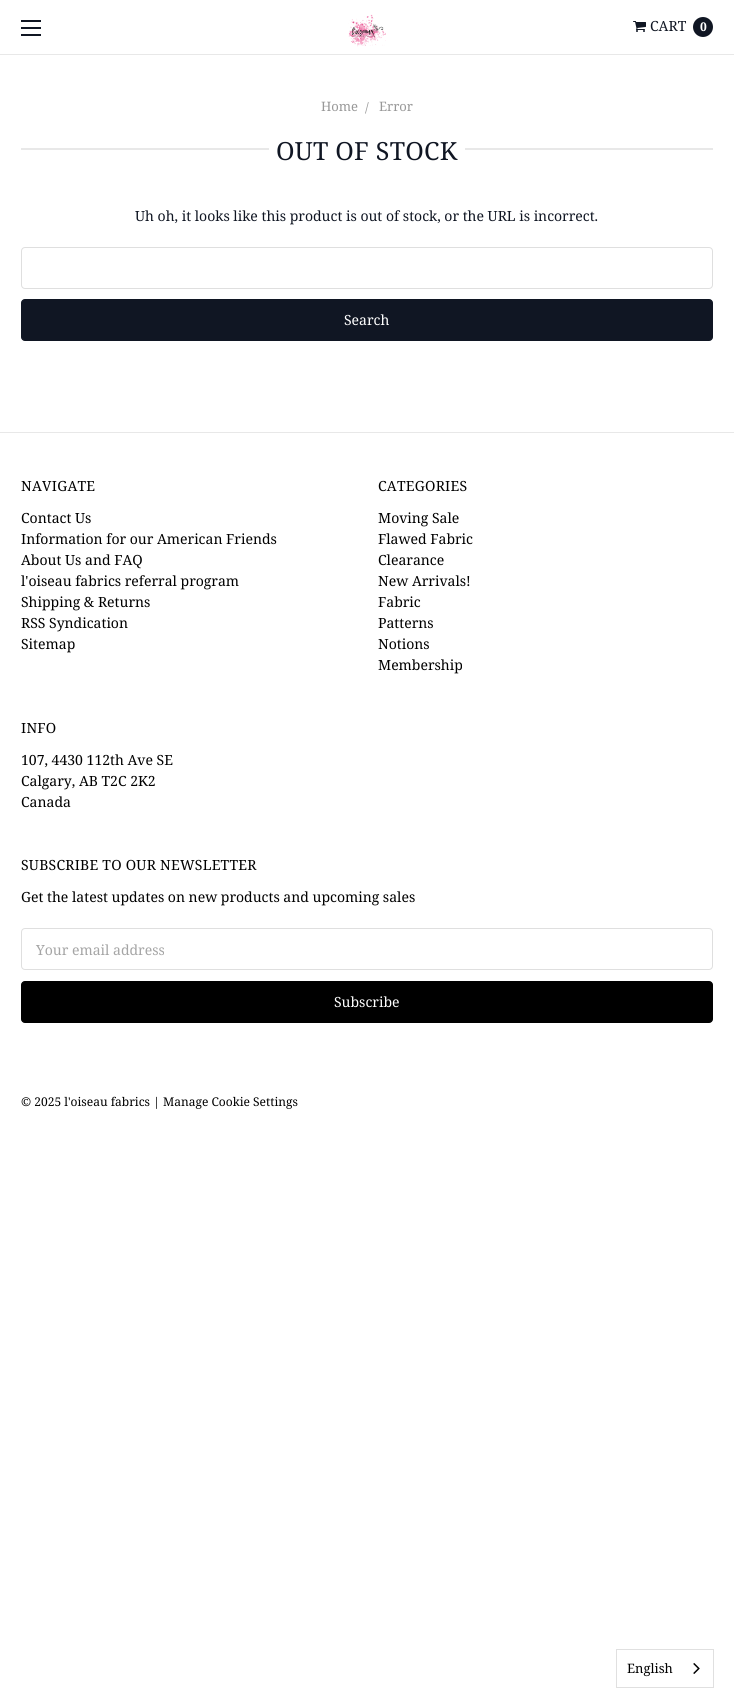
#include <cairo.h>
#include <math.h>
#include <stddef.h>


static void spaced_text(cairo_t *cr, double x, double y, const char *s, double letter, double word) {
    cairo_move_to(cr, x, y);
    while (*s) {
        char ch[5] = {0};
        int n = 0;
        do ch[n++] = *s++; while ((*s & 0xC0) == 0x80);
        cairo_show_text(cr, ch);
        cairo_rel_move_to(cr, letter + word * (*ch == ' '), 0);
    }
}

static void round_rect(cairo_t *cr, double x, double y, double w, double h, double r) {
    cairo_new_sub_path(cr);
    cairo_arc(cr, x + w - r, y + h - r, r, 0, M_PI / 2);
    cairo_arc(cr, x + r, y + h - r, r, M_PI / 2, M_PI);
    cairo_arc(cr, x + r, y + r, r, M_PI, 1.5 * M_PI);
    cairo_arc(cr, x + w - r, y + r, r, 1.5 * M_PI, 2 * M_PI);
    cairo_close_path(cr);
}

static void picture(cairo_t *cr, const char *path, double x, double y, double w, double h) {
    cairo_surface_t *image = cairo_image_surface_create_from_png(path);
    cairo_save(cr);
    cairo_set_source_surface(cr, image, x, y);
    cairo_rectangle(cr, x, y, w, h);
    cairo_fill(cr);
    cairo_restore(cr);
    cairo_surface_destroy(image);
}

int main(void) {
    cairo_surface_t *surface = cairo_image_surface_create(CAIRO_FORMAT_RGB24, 734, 1688);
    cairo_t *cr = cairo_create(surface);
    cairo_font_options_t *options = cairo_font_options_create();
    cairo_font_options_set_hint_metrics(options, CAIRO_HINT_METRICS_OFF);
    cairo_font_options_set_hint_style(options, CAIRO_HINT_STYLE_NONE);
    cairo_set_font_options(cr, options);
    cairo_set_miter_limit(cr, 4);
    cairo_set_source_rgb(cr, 1, 1, 1);
    cairo_paint(cr);
    cairo_set_source_rgb(cr, 0.91, 0.91, 0.91);
    cairo_rectangle(cr, 0, 54, 734, 1);
    cairo_fill(cr);
    cairo_set_source_rgb(cr, 0.063, 0.086, 0.137);
    cairo_rectangle(cr, 21, 27, 20, 2);
    cairo_fill(cr);
    cairo_rectangle(cr, 21, 20, 20, 2);
    cairo_fill(cr);
    cairo_rectangle(cr, 21, 34, 20, 2);
    cairo_fill(cr);
    picture(cr, "img1.png", 348, 14, 38, 33);
    picture(cr, "img2.png", 633, 21, 13, 11);
    cairo_select_font_face(cr, "Noto Serif", CAIRO_FONT_SLANT_NORMAL, CAIRO_FONT_WEIGHT_NORMAL);
    cairo_set_font_size(cr, 14);
    cairo_move_to(cr, 650, 31);
    cairo_show_text(cr, "CART");
    cairo_new_path(cr);
    cairo_arc(cr, 703, 27, 10, 0, 2 * M_PI);
    cairo_fill(cr);
    cairo_select_font_face(cr, "Noto Serif", CAIRO_FONT_SLANT_NORMAL, CAIRO_FONT_WEIGHT_BOLD);
    cairo_set_font_size(cr, 12);
    cairo_set_source_rgb(cr, 1, 1, 1);
    cairo_move_to(cr, 700, 31);
    cairo_show_text(cr, "0");
    cairo_select_font_face(cr, "Noto Serif", CAIRO_FONT_SLANT_NORMAL, CAIRO_FONT_WEIGHT_NORMAL);
    cairo_set_font_size(cr, 13);
    cairo_set_source_rgb(cr, 0.596, 0.596, 0.596);
    cairo_move_to(cr, 321, 111);
    cairo_show_text(cr, "Home");
    cairo_move_to(cr, 365, 112);
    cairo_show_text(cr, "/");
    cairo_move_to(cr, 379, 111);
    cairo_show_text(cr, "Error");
    cairo_set_source_rgb(cr, 0.91, 0.91, 0.91);
    cairo_rectangle(cr, 21, 148, 248, 2);
    cairo_fill(cr);
    cairo_set_font_size(cr, 25);
    cairo_set_source_rgb(cr, 0.063, 0.086, 0.137);
    spaced_text(cr, 276, 160, "OUT OF STOCK", 0.25, 0);
    cairo_set_source_rgb(cr, 0.91, 0.91, 0.91);
    cairo_rectangle(cr, 465, 148, 248, 2);
    cairo_fill(cr);
    cairo_set_font_size(cr, 14);
    cairo_set_source_rgb(cr, 0.063, 0.086, 0.137);
    cairo_move_to(cr, 135, 221);
    cairo_show_text(cr, "Uh oh, it looks like this product is out of stock, or the URL is incorrect.");
    round_rect(cr, 21.5, 247.5, 691, 41, 3.5);
    cairo_set_source_rgb(cr, 0.875, 0.875, 0.875);
    cairo_set_line_width(cr, 1);
    cairo_stroke(cr);
    cairo_set_source_rgb(cr, 0.063, 0.086, 0.137);
    round_rect(cr, 21.5, 299.5, 691, 41, 3.5);
    cairo_fill_preserve(cr);
    cairo_stroke(cr);
    cairo_set_source_rgb(cr, 1, 1, 1);
    cairo_move_to(cr, 344, 325);
    cairo_show_text(cr, "Search");
    cairo_set_source_rgb(cr, 0.91, 0.91, 0.91);
    cairo_rectangle(cr, 0, 432, 734, 1);
    cairo_fill(cr);
    cairo_set_source_rgb(cr, 0, 0, 0);
    spaced_text(cr, 21, 491, "NAVIGATE", 0.25, 0);
    cairo_move_to(cr, 21, 523);
    cairo_show_text(cr, "Contact Us");
    cairo_move_to(cr, 21, 544);
    cairo_show_text(cr, "Information for our American Friends");
    cairo_move_to(cr, 21, 565);
    cairo_show_text(cr, "About Us and FAQ");
    cairo_move_to(cr, 21, 586);
    cairo_show_text(cr, "l'oiseau fabrics referral program");
    cairo_move_to(cr, 21, 607);
    cairo_show_text(cr, "Shipping & Returns");
    cairo_move_to(cr, 21, 628);
    cairo_show_text(cr, "RSS Syndication");
    cairo_move_to(cr, 21, 649);
    cairo_show_text(cr, "Sitemap");
    spaced_text(cr, 378, 491, "CATEGORIES", 0.25, 0);
    cairo_move_to(cr, 378, 523);
    cairo_show_text(cr, "Moving Sale");
    cairo_move_to(cr, 378, 544);
    cairo_show_text(cr, "Flawed Fabric");
    cairo_move_to(cr, 378, 565);
    cairo_show_text(cr, "Clearance");
    cairo_move_to(cr, 378, 586);
    cairo_show_text(cr, "New Arrivals!");
    cairo_move_to(cr, 378, 607);
    cairo_show_text(cr, "Fabric");
    cairo_move_to(cr, 378, 628);
    cairo_show_text(cr, "Patterns");
    cairo_move_to(cr, 378, 649);
    cairo_show_text(cr, "Notions");
    cairo_move_to(cr, 378, 670);
    cairo_show_text(cr, "Membership");
    spaced_text(cr, 21, 733, "INFO", 0.25, 0);
    cairo_move_to(cr, 21, 765);
    cairo_show_text(cr, "107, 4430 112th Ave SE");
    cairo_move_to(cr, 21, 786);
    cairo_show_text(cr, "Calgary, AB T2C 2K2");
    cairo_move_to(cr, 21, 807);
    cairo_show_text(cr, "Canada");
    spaced_text(cr, 21, 870, "SUBSCRIBE TO OUR NEWSLETTER", 0.25, 0);
    cairo_move_to(cr, 21, 902);
    cairo_show_text(cr, "Get the latest updates on new products and upcoming sales");
    round_rect(cr, 21.5, 928.5, 691, 41, 3.5);
    cairo_set_source_rgb(cr, 0.875, 0.875, 0.875);
    cairo_stroke(cr);
    cairo_set_source_rgb(cr, 0.647, 0.647, 0.647);
    cairo_move_to(cr, 36, 955);
    cairo_show_text(cr, "Your email address");
    cairo_set_source_rgb(cr, 0, 0, 0);
    round_rect(cr, 21.5, 981.5, 691, 41, 3.5);
    cairo_fill_preserve(cr);
    cairo_stroke(cr);
    cairo_set_source_rgb(cr, 1, 1, 1);
    cairo_move_to(cr, 334, 1007);
    cairo_show_text(cr, "Subscribe");
    cairo_set_font_size(cr, 12);
    cairo_set_source_rgb(cr, 0, 0, 0);
    cairo_move_to(cr, 21, 1106);
    cairo_show_text(cr, "© 2025 l'oiseau fabrics | Manage Cookie Settings");
    cairo_rectangle(cr, 616.5, 1649.5, 97, 38);
    cairo_set_source_rgb(cr, 0.878, 0.878, 0.878);
    cairo_stroke(cr);
    cairo_set_font_size(cr, 13);
    cairo_set_source_rgb(cr, 0, 0, 0);
    cairo_move_to(cr, 627, 1673);
    cairo_show_text(cr, "English");
    picture(cr, "img3.png", 693, 1663, 7, 11);
    cairo_surface_write_to_png(surface, "page.png");
    cairo_font_options_destroy(options);
    cairo_destroy(cr);
    cairo_surface_destroy(surface);
    return 0;
}
